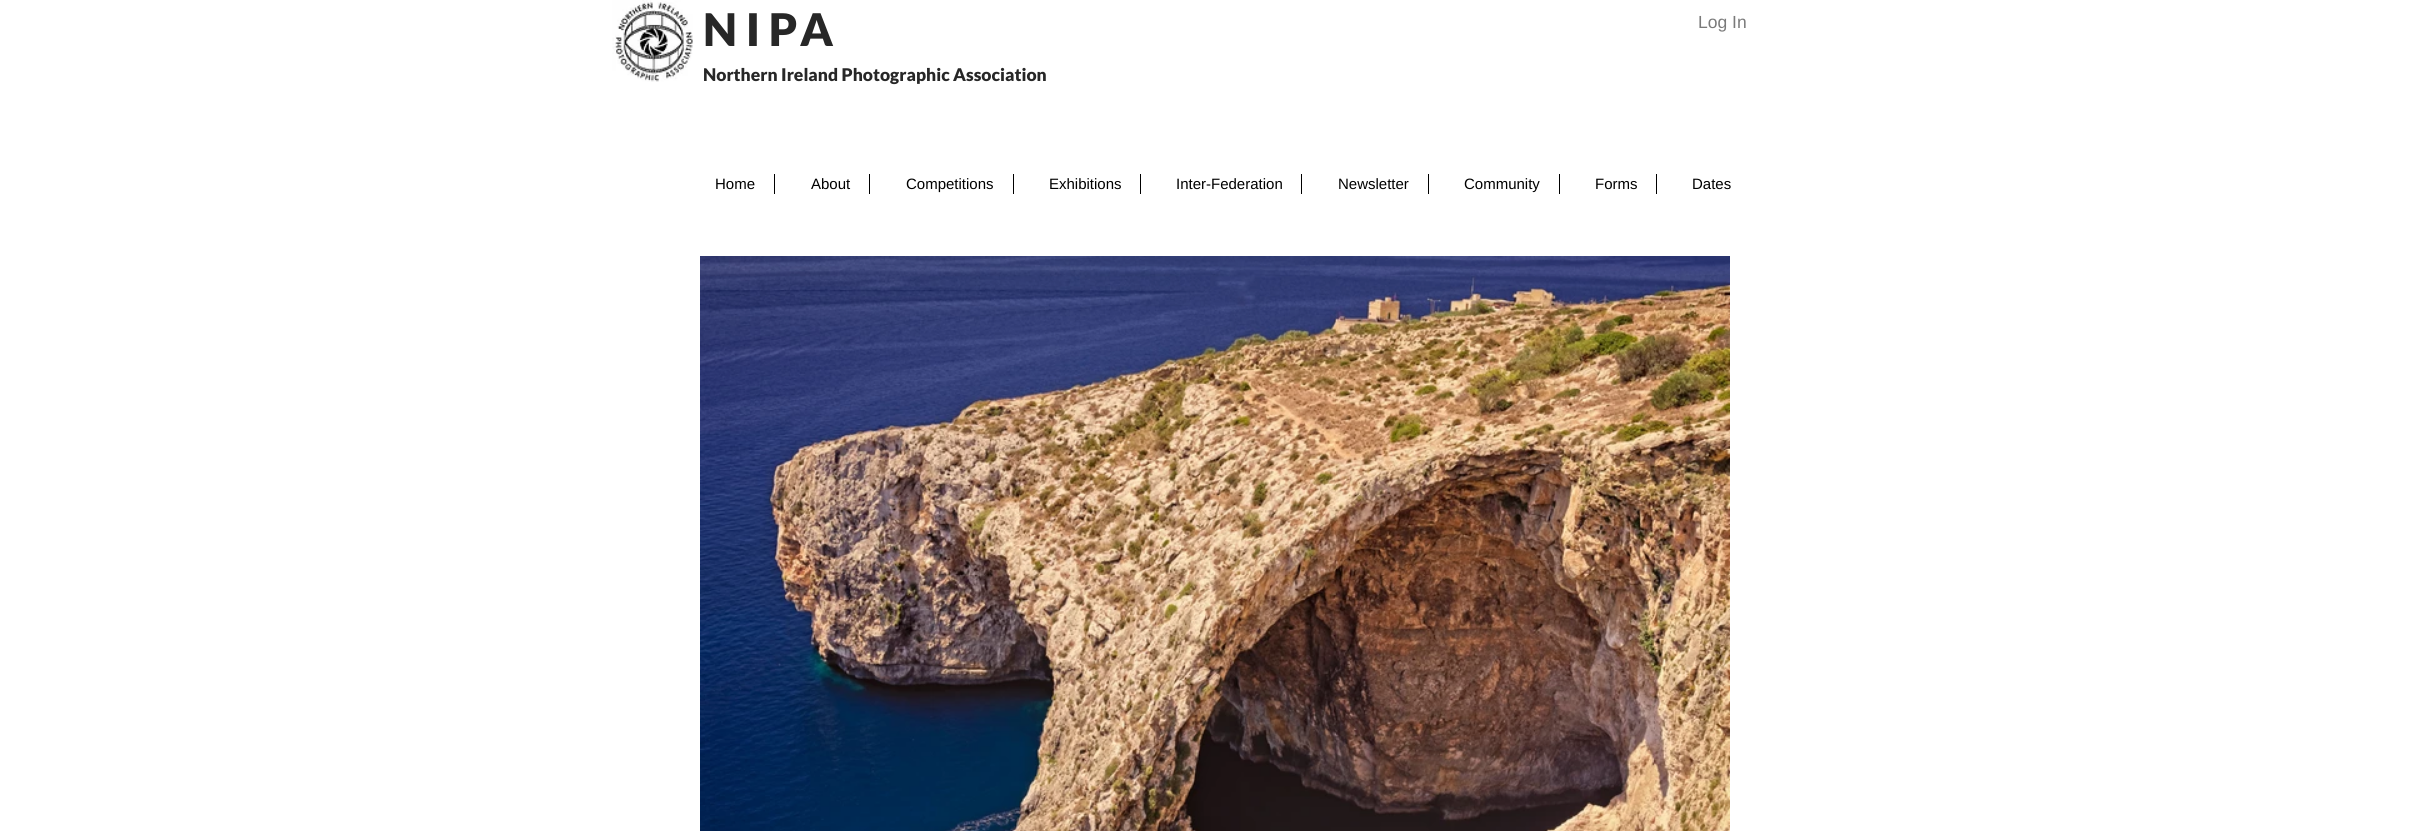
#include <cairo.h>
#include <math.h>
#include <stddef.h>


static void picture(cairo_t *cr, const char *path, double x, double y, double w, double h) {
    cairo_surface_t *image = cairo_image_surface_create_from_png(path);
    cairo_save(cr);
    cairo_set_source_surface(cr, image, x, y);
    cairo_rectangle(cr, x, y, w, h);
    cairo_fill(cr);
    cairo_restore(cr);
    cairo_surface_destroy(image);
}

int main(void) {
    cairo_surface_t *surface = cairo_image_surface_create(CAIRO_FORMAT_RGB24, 2430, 831);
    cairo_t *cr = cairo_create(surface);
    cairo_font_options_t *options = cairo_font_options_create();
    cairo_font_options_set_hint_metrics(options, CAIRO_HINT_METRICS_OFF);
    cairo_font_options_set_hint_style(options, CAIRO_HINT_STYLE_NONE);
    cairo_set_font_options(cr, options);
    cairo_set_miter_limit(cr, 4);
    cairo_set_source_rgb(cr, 1, 1, 1);
    cairo_paint(cr);
    picture(cr, "img1.png", 612, 0, 81, 82);
    cairo_select_font_face(cr, "Lato Black", CAIRO_FONT_SLANT_NORMAL, CAIRO_FONT_WEIGHT_NORMAL);
    cairo_set_font_size(cr, 45);
    cairo_set_source_rgb(cr, 0.153, 0.153, 0.153);
    cairo_move_to(cr, 703, 46);
    cairo_show_text(cr, "N I P");
    cairo_move_to(cr, 800, 46);
    cairo_show_text(cr, "A");
    cairo_set_font_size(cr, 17.5);
    cairo_move_to(cr, 703, 81);
    cairo_show_text(cr, "Northern Ireland Photographic Association");
    cairo_select_font_face(cr, "Liberation Sans", CAIRO_FONT_SLANT_NORMAL, CAIRO_FONT_WEIGHT_NORMAL);
    cairo_set_source_rgb(cr, 0.478, 0.478, 0.478);
    cairo_move_to(cr, 1698, 28);
    cairo_show_text(cr, "Log In");
    cairo_set_font_size(cr, 15);
    cairo_set_source_rgb(cr, 0, 0, 0);
    cairo_move_to(cr, 715, 189);
    cairo_show_text(cr, "Home");
    cairo_rectangle(cr, 774, 174, 1, 20);
    cairo_fill(cr);
    cairo_move_to(cr, 811, 189);
    cairo_show_text(cr, "About");
    cairo_rectangle(cr, 869, 174, 1, 20);
    cairo_fill(cr);
    cairo_move_to(cr, 906, 189);
    cairo_show_text(cr, "Competitions");
    cairo_rectangle(cr, 1013, 174, 1, 20);
    cairo_fill(cr);
    cairo_move_to(cr, 1049, 189);
    cairo_show_text(cr, "Exhibitions");
    cairo_rectangle(cr, 1140, 174, 1, 20);
    cairo_fill(cr);
    cairo_move_to(cr, 1176, 189);
    cairo_show_text(cr, "Inter-Federation");
    cairo_rectangle(cr, 1301, 174, 1, 20);
    cairo_fill(cr);
    cairo_move_to(cr, 1338, 189);
    cairo_show_text(cr, "Newsletter");
    cairo_rectangle(cr, 1428, 174, 1, 20);
    cairo_fill(cr);
    cairo_move_to(cr, 1464, 189);
    cairo_show_text(cr, "Community");
    cairo_rectangle(cr, 1559, 174, 1, 20);
    cairo_fill(cr);
    cairo_move_to(cr, 1595, 189);
    cairo_show_text(cr, "Forms");
    cairo_rectangle(cr, 1656, 174, 1, 20);
    cairo_fill(cr);
    cairo_move_to(cr, 1692, 189);
    cairo_show_text(cr, "Dates");
    picture(cr, "img2.png", 700, 256, 1030, 575);
    cairo_surface_write_to_png(surface, "page.png");
    cairo_font_options_destroy(options);
    cairo_destroy(cr);
    cairo_surface_destroy(surface);
    return 0;
}
